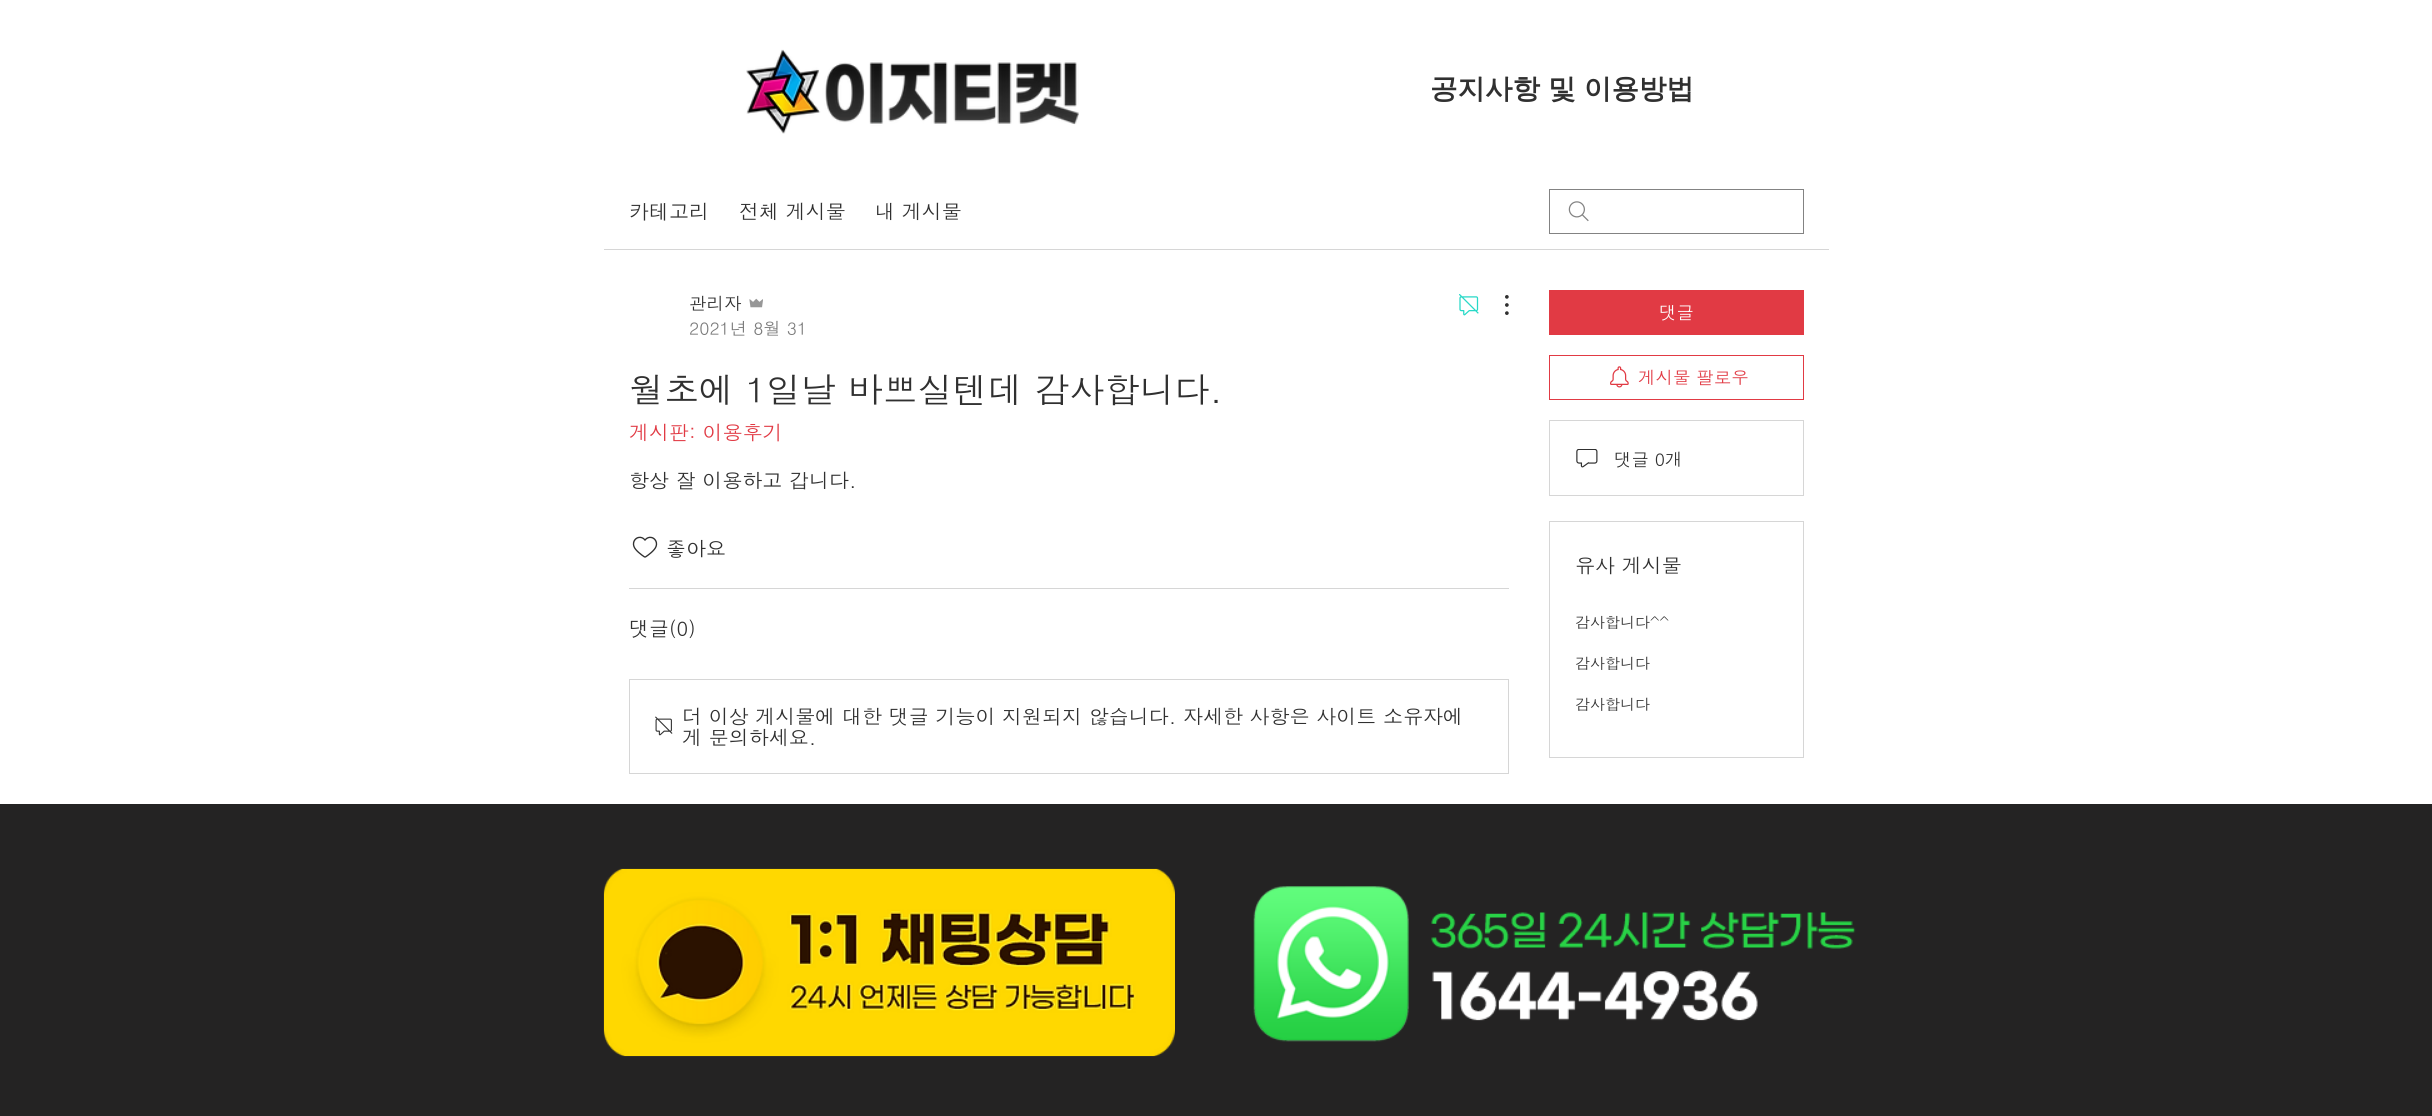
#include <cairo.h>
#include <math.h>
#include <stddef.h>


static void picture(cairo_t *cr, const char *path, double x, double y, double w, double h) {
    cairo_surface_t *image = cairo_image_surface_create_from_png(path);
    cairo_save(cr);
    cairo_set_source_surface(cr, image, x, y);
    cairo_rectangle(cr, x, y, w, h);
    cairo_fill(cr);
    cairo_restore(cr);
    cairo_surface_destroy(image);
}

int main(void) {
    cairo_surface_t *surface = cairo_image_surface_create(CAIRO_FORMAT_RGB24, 2432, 1116);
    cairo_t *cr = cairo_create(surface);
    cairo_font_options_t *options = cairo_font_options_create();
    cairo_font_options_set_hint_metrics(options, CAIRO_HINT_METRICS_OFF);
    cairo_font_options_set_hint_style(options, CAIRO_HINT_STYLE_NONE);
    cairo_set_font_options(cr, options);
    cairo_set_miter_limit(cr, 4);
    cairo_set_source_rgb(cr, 1, 1, 1);
    cairo_paint(cr);
    picture(cr, "img1.png", 746, 49, 333, 85);
    cairo_select_font_face(cr, "WenQuanYi Zen Hei", CAIRO_FONT_SLANT_NORMAL, CAIRO_FONT_WEIGHT_BOLD);
    cairo_set_font_size(cr, 27.5);
    cairo_set_source_rgb(cr, 0.188, 0.188, 0.188);
    cairo_move_to(cr, 1430, 98);
    cairo_show_text(cr, "공지사항 및 이용방법");
    cairo_set_source_rgb(cr, 0.839, 0.839, 0.839);
    cairo_rectangle(cr, 604, 249, 1225, 1);
    cairo_fill(cr);
    cairo_select_font_face(cr, "Dotum", CAIRO_FONT_SLANT_NORMAL, CAIRO_FONT_WEIGHT_NORMAL);
    cairo_set_font_size(cr, 20);
    cairo_set_source_rgb(cr, 0.188, 0.188, 0.188);
    cairo_move_to(cr, 629, 219);
    cairo_show_text(cr, "카테고리");
    cairo_move_to(cr, 739, 219);
    cairo_show_text(cr, "전체 게시물");
    cairo_move_to(cr, 875, 219);
    cairo_show_text(cr, "내 게시물");
    picture(cr, "img2.png", 1568, 201, 21, 21);
    cairo_rectangle(cr, 1549.5, 189.5, 254, 44);
    cairo_set_source_rgb(cr, 0.514, 0.514, 0.514);
    cairo_set_line_width(cr, 1);
    cairo_stroke(cr);
    cairo_set_font_size(cr, 17.5);
    cairo_set_source_rgb(cr, 0.188, 0.188, 0.188);
    cairo_move_to(cr, 689, 310);
    cairo_show_text(cr, "관리자");
    picture(cr, "img3.png", 749, 298, 14, 10);
    cairo_set_source_rgb(cr, 0.482, 0.482, 0.482);
    cairo_move_to(cr, 689, 335);
    cairo_show_text(cr, "2021년 8월 31");
    picture(cr, "img4.png", 1459, 294, 20, 22);
    picture(cr, "img5.png", 1505, 295, 4, 20);
    cairo_set_font_size(cr, 35);
    cairo_set_source_rgb(cr, 0.188, 0.188, 0.188);
    cairo_move_to(cr, 629, 403);
    cairo_show_text(cr, "월초에 1일날 바쁘실텐데 감사합니다.");
    cairo_set_font_size(cr, 20);
    cairo_set_source_rgb(cr, 0.882, 0.227, 0.267);
    cairo_move_to(cr, 629, 440);
    cairo_show_text(cr, "게시판: 이용후기");
    cairo_set_source_rgb(cr, 0.188, 0.188, 0.188);
    cairo_move_to(cr, 629, 488);
    cairo_show_text(cr, "항상 잘 이용하고 갑니다.");
    picture(cr, "img6.png", 632, 536, 26, 22);
    cairo_move_to(cr, 666, 556);
    cairo_show_text(cr, "좋아요");
    cairo_set_source_rgb(cr, 0.839, 0.839, 0.839);
    cairo_rectangle(cr, 629, 588, 880, 1);
    cairo_fill(cr);
    cairo_set_source_rgb(cr, 0.188, 0.188, 0.188);
    cairo_move_to(cr, 629, 636);
    cairo_show_text(cr, "댓글(0)");
    cairo_rectangle(cr, 629.5, 679.5, 879, 94);
    cairo_set_source_rgb(cr, 0.839, 0.839, 0.839);
    cairo_stroke(cr);
    picture(cr, "img7.png", 655, 716, 18, 20);
    cairo_set_source_rgb(cr, 0.188, 0.188, 0.188);
    cairo_move_to(cr, 682, 724);
    cairo_show_text(cr, "더 이상 게시물에 대한 댓글 기능이 지원되지 않습니다. 자세한 사항은 사이트 소유자에");
    cairo_move_to(cr, 682, 745);
    cairo_show_text(cr, "게 문의하세요.");
    cairo_set_source_rgb(cr, 0.882, 0.227, 0.267);
    cairo_rectangle(cr, 1549, 290, 255, 45);
    cairo_fill(cr);
    cairo_set_font_size(cr, 17.5);
    cairo_set_source_rgb(cr, 1, 1, 1);
    cairo_move_to(cr, 1659, 319);
    cairo_show_text(cr, "댓글");
    cairo_rectangle(cr, 1549.5, 355.5, 254, 44);
    cairo_set_source_rgb(cr, 0.882, 0.227, 0.267);
    cairo_stroke(cr);
    picture(cr, "img8.png", 1610, 366, 19, 22);
    cairo_move_to(cr, 1638, 384);
    cairo_show_text(cr, "게시물 팔로우");
    cairo_rectangle(cr, 1549.5, 420.5, 254, 75);
    cairo_set_source_rgb(cr, 0.839, 0.839, 0.839);
    cairo_stroke(cr);
    picture(cr, "img9.png", 1576, 449, 22, 19);
    cairo_set_source_rgb(cr, 0.188, 0.188, 0.188);
    cairo_move_to(cr, 1614, 466);
    cairo_show_text(cr, "댓글 0개");
    cairo_rectangle(cr, 1549.5, 521.5, 254, 236);
    cairo_set_source_rgb(cr, 0.839, 0.839, 0.839);
    cairo_stroke(cr);
    cairo_set_font_size(cr, 20);
    cairo_set_source_rgb(cr, 0.188, 0.188, 0.188);
    cairo_move_to(cr, 1575, 573);
    cairo_show_text(cr, "유사 게시물");
    cairo_set_font_size(cr, 15);
    cairo_move_to(cr, 1575, 628);
    cairo_show_text(cr, "감사합니다^^");
    cairo_move_to(cr, 1575, 669);
    cairo_show_text(cr, "감사합니다");
    cairo_move_to(cr, 1575, 710);
    cairo_show_text(cr, "감사합니다");
    cairo_set_source_rgb(cr, 0.141, 0.137, 0.137);
    cairo_rectangle(cr, 0, 804, 2432, 312);
    cairo_fill(cr);
    picture(cr, "img10.png", 603, 868, 572, 189);
    picture(cr, "img11.png", 1253, 886, 603, 156);
    cairo_surface_write_to_png(surface, "page.png");
    cairo_font_options_destroy(options);
    cairo_destroy(cr);
    cairo_surface_destroy(surface);
    return 0;
}
